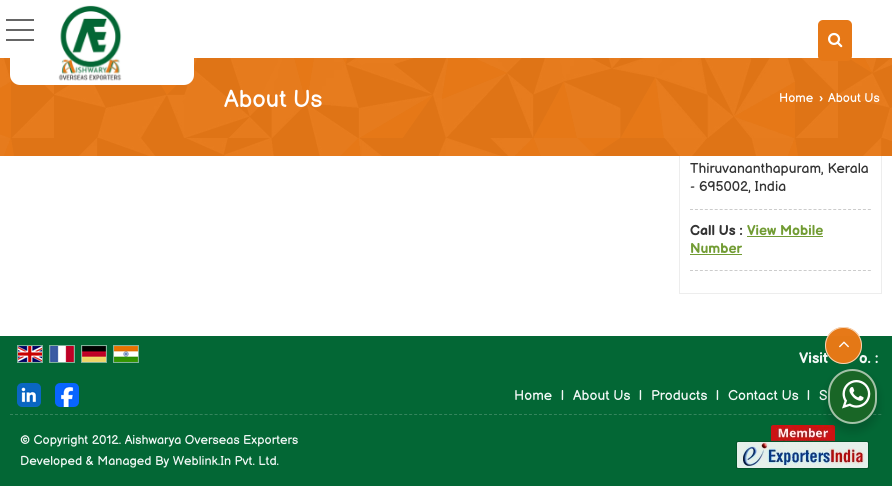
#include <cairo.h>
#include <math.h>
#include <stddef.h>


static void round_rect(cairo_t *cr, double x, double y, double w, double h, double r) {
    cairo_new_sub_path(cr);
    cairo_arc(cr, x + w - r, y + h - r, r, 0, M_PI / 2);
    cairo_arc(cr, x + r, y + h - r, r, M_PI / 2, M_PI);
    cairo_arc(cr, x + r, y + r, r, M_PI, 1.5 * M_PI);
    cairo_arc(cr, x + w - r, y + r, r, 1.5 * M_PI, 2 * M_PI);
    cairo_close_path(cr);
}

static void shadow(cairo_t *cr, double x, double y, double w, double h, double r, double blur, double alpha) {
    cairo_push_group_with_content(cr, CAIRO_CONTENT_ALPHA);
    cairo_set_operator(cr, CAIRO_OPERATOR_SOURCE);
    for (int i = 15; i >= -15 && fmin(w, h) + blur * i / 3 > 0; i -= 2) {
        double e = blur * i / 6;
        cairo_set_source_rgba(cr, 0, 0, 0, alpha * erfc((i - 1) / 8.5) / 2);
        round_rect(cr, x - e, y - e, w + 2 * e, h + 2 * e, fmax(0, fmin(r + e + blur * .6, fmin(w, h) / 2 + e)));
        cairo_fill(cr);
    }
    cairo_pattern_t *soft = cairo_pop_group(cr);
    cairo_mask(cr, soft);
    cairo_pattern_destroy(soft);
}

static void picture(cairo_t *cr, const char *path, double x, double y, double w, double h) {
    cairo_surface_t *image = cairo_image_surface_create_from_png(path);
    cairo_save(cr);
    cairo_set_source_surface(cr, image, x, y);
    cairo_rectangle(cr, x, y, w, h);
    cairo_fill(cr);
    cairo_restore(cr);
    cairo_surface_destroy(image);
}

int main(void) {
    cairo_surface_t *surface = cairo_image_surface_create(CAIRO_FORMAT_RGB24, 892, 486);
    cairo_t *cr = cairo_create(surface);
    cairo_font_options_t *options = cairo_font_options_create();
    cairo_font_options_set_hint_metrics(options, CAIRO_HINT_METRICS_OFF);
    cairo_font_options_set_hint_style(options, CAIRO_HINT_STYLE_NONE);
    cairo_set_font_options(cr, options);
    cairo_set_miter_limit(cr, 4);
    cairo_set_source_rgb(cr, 1, 1, 1);
    cairo_paint(cr);
    cairo_rectangle(cr, 679.5, 6.5, 202, 287);
    cairo_set_source_rgb(cr, 0.929, 0.929, 0.929);
    cairo_set_line_width(cr, 1);
    cairo_stroke(cr);
    cairo_set_source_rgb(cr, 1, 1, 1);
    cairo_rectangle(cr, 679, 6, 203, 52);
    cairo_fill(cr);
    cairo_set_source_rgb(cr, 0.902, 0.471, 0.09);
    cairo_rectangle(cr, 0, 58, 892, 98);
    cairo_fill(cr);
    picture(cr, "img1.png", 0, 58, 892, 98);
    cairo_set_source_rgb(cr, 1, 1, 1);
    cairo_new_path(cr);
    cairo_move_to(cr, 10, 0);
    cairo_line_to(cr, 194, 0);
    cairo_line_to(cr, 194, 75);
    cairo_curve_to(cr, 194, 80.5, 189.5, 85, 184, 85);
    cairo_line_to(cr, 20, 85);
    cairo_curve_to(cr, 14.5, 85, 10, 80.5, 10, 75);
    cairo_close_path(cr);
    cairo_fill(cr);
    picture(cr, "img2.png", 58, 5, 64, 76);
    cairo_set_source_rgb(cr, 0.4, 0.4, 0.4);
    cairo_rectangle(cr, 6, 29, 28, 2);
    cairo_fill(cr);
    cairo_rectangle(cr, 6, 19, 28, 2);
    cairo_fill(cr);
    cairo_rectangle(cr, 6, 39, 28, 2);
    cairo_fill(cr);
    cairo_set_source_rgb(cr, 0.902, 0.471, 0.09);
    round_rect(cr, 818, 20, 34, 41, 5);
    cairo_fill(cr);
    picture(cr, "img3.png", 828, 32, 15, 16);
    cairo_select_font_face(cr, "Balsamiq Sans", CAIRO_FONT_SLANT_NORMAL, CAIRO_FONT_WEIGHT_NORMAL);
    cairo_set_font_size(cr, 24);
    cairo_set_source_rgb(cr, 1, 1, 1);
    cairo_move_to(cr, 224, 107);
    cairo_show_text(cr, "About Us");
    cairo_set_font_size(cr, 12.6);
    cairo_move_to(cr, 779, 102);
    cairo_show_text(cr, "Home");
    cairo_select_font_face(cr, "Liberation Sans", CAIRO_FONT_SLANT_NORMAL, CAIRO_FONT_WEIGHT_BOLD);
    cairo_move_to(cr, 819, 102);
    cairo_show_text(cr, "›");
    cairo_select_font_face(cr, "Balsamiq Sans", CAIRO_FONT_SLANT_NORMAL, CAIRO_FONT_WEIGHT_NORMAL);
    cairo_move_to(cr, 828, 102);
    cairo_show_text(cr, "About Us");
    cairo_set_font_size(cr, 14);
    cairo_set_source_rgb(cr, 0.2, 0.2, 0.2);
    cairo_move_to(cr, 690, 173);
    cairo_show_text(cr, "Thiruvananthapuram, Kerala");
    cairo_move_to(cr, 690, 191);
    cairo_show_text(cr, "- 695002, India");
    cairo_new_path(cr);
    cairo_move_to(cr, 690, 209.5);
    cairo_line_to(cr, 871, 209.5);
    cairo_set_source_rgb(cr, 0.8, 0.8, 0.8);
    cairo_set_dash(cr, (double[]){3, 1.94}, 2, 0);
    cairo_stroke(cr);
    cairo_select_font_face(cr, "Balsamiq Sans", CAIRO_FONT_SLANT_NORMAL, CAIRO_FONT_WEIGHT_BOLD);
    cairo_set_source_rgb(cr, 0.2, 0.2, 0.2);
    cairo_move_to(cr, 690, 235);
    cairo_show_text(cr, "Call Us :");
    cairo_set_source_rgb(cr, 0.447, 0.612, 0.204);
    cairo_move_to(cr, 747, 235);
    cairo_show_text(cr, "View Mobile");
    cairo_rectangle(cr, 747, 236, 76, 1);
    cairo_fill(cr);
    cairo_move_to(cr, 690, 253);
    cairo_show_text(cr, "Number");
    cairo_rectangle(cr, 690, 254, 52, 1);
    cairo_fill(cr);
    cairo_new_path(cr);
    cairo_move_to(cr, 690, 270.5);
    cairo_line_to(cr, 871, 270.5);
    cairo_set_source_rgb(cr, 0.8, 0.8, 0.8);
    cairo_stroke(cr);
    cairo_set_source_rgb(cr, 0.012, 0.404, 0.208);
    cairo_rectangle(cr, 0, 336, 892, 150);
    cairo_fill(cr);
    cairo_rectangle(cr, 17.5, 345.5, 25, 17);
    cairo_set_source_rgb(cr, 0.506, 0.702, 0.604);
    cairo_set_dash(cr, NULL, 0, 0);
    cairo_stroke(cr);
    cairo_rectangle(cr, 49.5, 345.5, 25, 17);
    cairo_stroke(cr);
    cairo_rectangle(cr, 81.5, 345.5, 25, 17);
    cairo_stroke(cr);
    cairo_rectangle(cr, 113.5, 345.5, 25, 17);
    cairo_stroke(cr);
    picture(cr, "img4.png", 18, 346, 24, 16);
    picture(cr, "img5.png", 50, 346, 24, 16);
    picture(cr, "img6.png", 82, 346, 24, 16);
    picture(cr, "img7.png", 114, 346, 24, 16);
    cairo_set_font_size(cr, 15);
    cairo_set_source_rgb(cr, 0.949, 0.969, 0.961);
    cairo_move_to(cr, 799, 363);
    cairo_show_text(cr, "Visit");
    cairo_move_to(cr, 859, 363);
    cairo_show_text(cr, "o. :");
    picture(cr, "img8.png", 17, 383, 24, 24);
    picture(cr, "img9.png", 55, 383, 24, 24);
    cairo_select_font_face(cr, "Balsamiq Sans", CAIRO_FONT_SLANT_NORMAL, CAIRO_FONT_WEIGHT_NORMAL);
    cairo_set_font_size(cr, 14);
    cairo_move_to(cr, 514, 400);
    cairo_show_text(cr, "Home");
    cairo_move_to(cr, 561, 400);
    cairo_show_text(cr, "|");
    cairo_move_to(cr, 573, 400);
    cairo_show_text(cr, "About Us");
    cairo_move_to(cr, 639, 400);
    cairo_show_text(cr, "|");
    cairo_move_to(cr, 651, 400);
    cairo_show_text(cr, "Products");
    cairo_move_to(cr, 716, 400);
    cairo_show_text(cr, "|");
    cairo_move_to(cr, 728, 400);
    cairo_show_text(cr, "Contact Us");
    cairo_move_to(cr, 807, 400);
    cairo_show_text(cr, "|");
    cairo_move_to(cr, 819, 400);
    cairo_show_text(cr, "S");
    cairo_new_path(cr);
    cairo_move_to(cr, 10, 414.5);
    cairo_line_to(cr, 882, 414.5);
    cairo_set_source_rgb(cr, 0.208, 0.522, 0.365);
    cairo_set_dash(cr, (double[]){3, 1.99}, 2, 0);
    cairo_stroke(cr);
    cairo_set_font_size(cr, 12.6);
    cairo_set_source_rgb(cr, 0.949, 0.969, 0.961);
    cairo_move_to(cr, 20, 444);
    cairo_show_text(cr, "© Copyright 2012. Aishwarya Overseas Exporters");
    cairo_move_to(cr, 20, 465);
    cairo_show_text(cr, "Developed & Managed By Weblink.In Pvt. Ltd.");
    picture(cr, "img10.png", 736, 425, 133, 44);
    cairo_set_source_rgba(cr, 0.902, 0.471, 0.09, 0.99);
    cairo_arc(cr, 843.5, 345.5, 18.5, 0, 2 * M_PI);
    cairo_fill(cr);
    cairo_arc(cr, 843.5, 345.5, 18, 0, 2 * M_PI);
    cairo_set_source_rgba(cr, 1, 1, 1, 0.69);
    cairo_set_dash(cr, NULL, 0, 0);
    cairo_stroke(cr);
    picture(cr, "img11.png", 839, 341, 10, 7);
    cairo_set_source_rgb(cr, 0, 0, 0);
    shadow(cr, 826, 373, 53, 59, 26.5, 4, 0.14);
    cairo_set_source_rgb(cr, 0.098, 0.4, 0.149);
    round_rect(cr, 828, 369, 49, 55, 24.5);
    cairo_fill(cr);
    round_rect(cr, 829, 370, 47, 53, 23.5);
    cairo_set_source_rgba(cr, 1, 1, 1, 0.6);
    cairo_set_line_width(cr, 2);
    cairo_stroke(cr);
    picture(cr, "img12.png", 842, 380, 29, 29);
    cairo_surface_write_to_png(surface, "page.png");
    cairo_font_options_destroy(options);
    cairo_destroy(cr);
    cairo_surface_destroy(surface);
    return 0;
}
